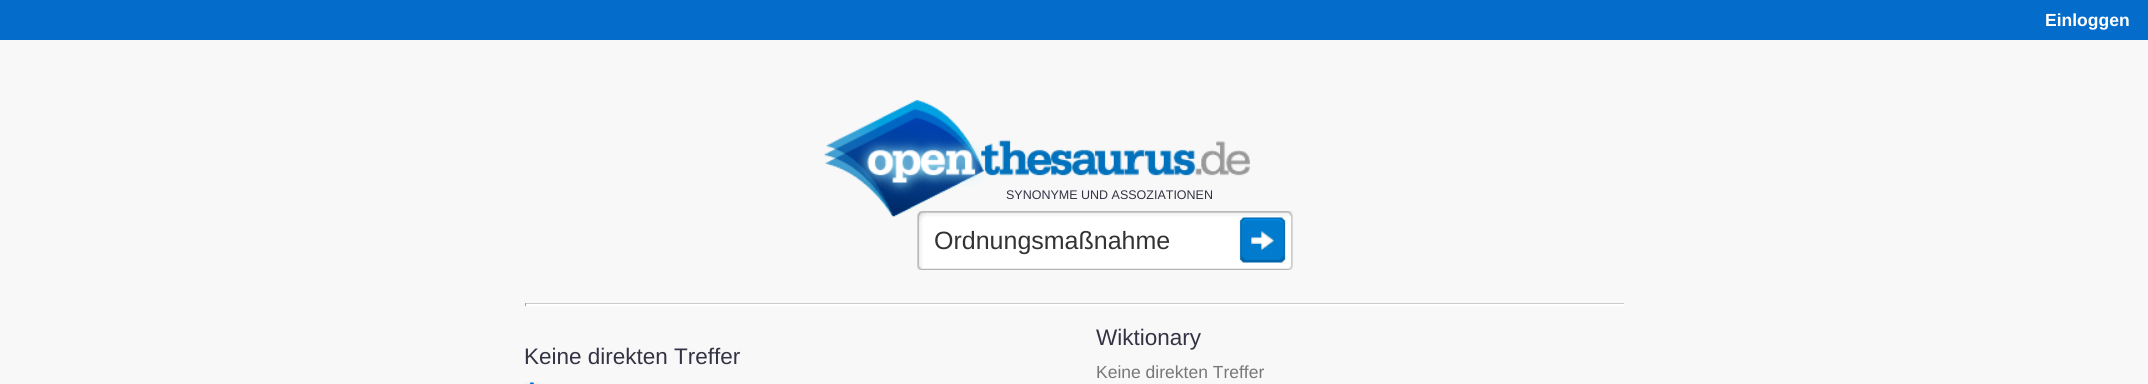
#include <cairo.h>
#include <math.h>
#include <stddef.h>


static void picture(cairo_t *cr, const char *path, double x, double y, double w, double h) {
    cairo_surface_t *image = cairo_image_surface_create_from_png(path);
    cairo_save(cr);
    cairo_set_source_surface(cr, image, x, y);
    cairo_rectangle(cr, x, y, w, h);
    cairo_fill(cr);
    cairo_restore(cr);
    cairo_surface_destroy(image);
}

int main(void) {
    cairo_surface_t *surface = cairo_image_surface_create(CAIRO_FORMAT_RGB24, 2148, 384);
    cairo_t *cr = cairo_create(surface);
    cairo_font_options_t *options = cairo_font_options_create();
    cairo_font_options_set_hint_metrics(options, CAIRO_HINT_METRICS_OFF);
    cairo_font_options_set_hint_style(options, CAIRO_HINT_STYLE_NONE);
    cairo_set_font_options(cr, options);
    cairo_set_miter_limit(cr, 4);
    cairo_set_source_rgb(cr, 0.969, 0.969, 0.969);
    cairo_paint(cr);
    cairo_set_source_rgb(cr, 0.016, 0.424, 0.796);
    cairo_rectangle(cr, 0, 0, 2148, 40);
    cairo_fill(cr);
    cairo_select_font_face(cr, "Liberation Sans", CAIRO_FONT_SLANT_NORMAL, CAIRO_FONT_WEIGHT_BOLD);
    cairo_set_font_size(cr, 17.5);
    cairo_set_source_rgb(cr, 1, 1, 1);
    cairo_move_to(cr, 2045, 26);
    cairo_show_text(cr, "Einloggen");
    picture(cr, "img1.png", 823, 100, 427, 117);
    cairo_select_font_face(cr, "Liberation Sans", CAIRO_FONT_SLANT_NORMAL, CAIRO_FONT_WEIGHT_NORMAL);
    cairo_set_font_size(cr, 12.5);
    cairo_set_source_rgb(cr, 0.2, 0.2, 0.267);
    cairo_move_to(cr, 1006, 199);
    cairo_show_text(cr, "SYNONYME UND ASSOZIATIONEN");
    picture(cr, "img2.png", 917, 211, 376, 59);
    cairo_set_font_size(cr, 25);
    cairo_set_source_rgb(cr, 0.2, 0.2, 0.2);
    cairo_move_to(cr, 934, 249);
    cairo_show_text(cr, "Ordnungsmaßnahme");
    picture(cr, "img3.png", 1239, 217, 47, 46);
    cairo_set_source_rgb(cr, 1, 1, 1);
    cairo_rectangle(cr, 525, 305, 1100, 1);
    cairo_fill(cr);
    cairo_set_source_rgb(cr, 0.8, 0.8, 0.8);
    cairo_rectangle(cr, 525, 303, 1100, 1);
    cairo_fill(cr);
    cairo_set_source_rgb(cr, 0.933, 0.933, 0.933);
    cairo_rectangle(cr, 1624, 303, 1, 3);
    cairo_fill(cr);
    cairo_set_source_rgb(cr, 1, 1, 1);
    cairo_rectangle(cr, 525, 304, 1100, 1);
    cairo_fill(cr);
    cairo_set_source_rgb(cr, 0.624, 0.624, 0.624);
    cairo_rectangle(cr, 525, 303, 1, 3);
    cairo_fill(cr);
    cairo_set_font_size(cr, 22.5);
    cairo_set_source_rgb(cr, 0.2, 0.2, 0.267);
    cairo_move_to(cr, 524, 364);
    cairo_show_text(cr, "Keine direkten Treffer");
    picture(cr, "img4.png", 525, 382, 14, 2);
    cairo_move_to(cr, 1096, 345);
    cairo_show_text(cr, "Wiktionary");
    cairo_set_font_size(cr, 17.5);
    cairo_set_source_rgb(cr, 0.467, 0.467, 0.467);
    cairo_move_to(cr, 1096, 378);
    cairo_show_text(cr, "Keine direkten Treffer");
    cairo_surface_write_to_png(surface, "page.png");
    cairo_font_options_destroy(options);
    cairo_destroy(cr);
    cairo_surface_destroy(surface);
    return 0;
}
